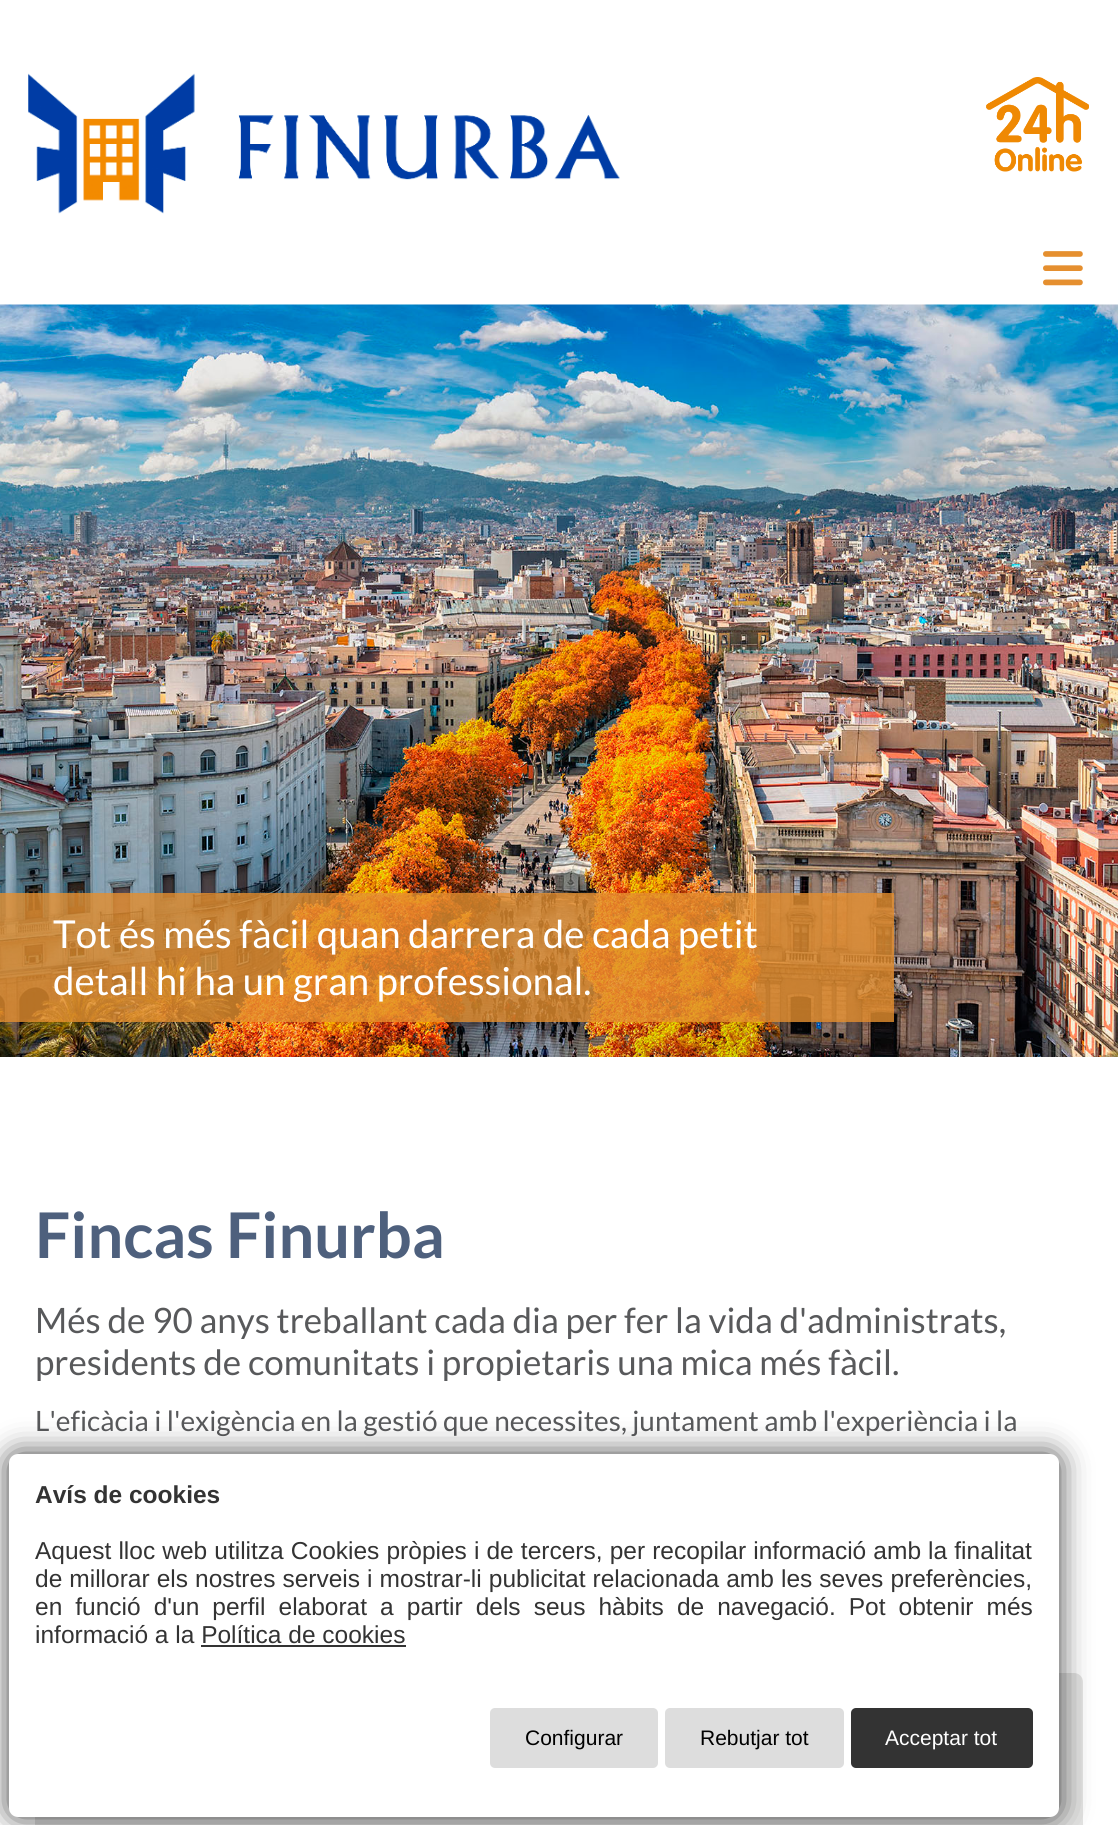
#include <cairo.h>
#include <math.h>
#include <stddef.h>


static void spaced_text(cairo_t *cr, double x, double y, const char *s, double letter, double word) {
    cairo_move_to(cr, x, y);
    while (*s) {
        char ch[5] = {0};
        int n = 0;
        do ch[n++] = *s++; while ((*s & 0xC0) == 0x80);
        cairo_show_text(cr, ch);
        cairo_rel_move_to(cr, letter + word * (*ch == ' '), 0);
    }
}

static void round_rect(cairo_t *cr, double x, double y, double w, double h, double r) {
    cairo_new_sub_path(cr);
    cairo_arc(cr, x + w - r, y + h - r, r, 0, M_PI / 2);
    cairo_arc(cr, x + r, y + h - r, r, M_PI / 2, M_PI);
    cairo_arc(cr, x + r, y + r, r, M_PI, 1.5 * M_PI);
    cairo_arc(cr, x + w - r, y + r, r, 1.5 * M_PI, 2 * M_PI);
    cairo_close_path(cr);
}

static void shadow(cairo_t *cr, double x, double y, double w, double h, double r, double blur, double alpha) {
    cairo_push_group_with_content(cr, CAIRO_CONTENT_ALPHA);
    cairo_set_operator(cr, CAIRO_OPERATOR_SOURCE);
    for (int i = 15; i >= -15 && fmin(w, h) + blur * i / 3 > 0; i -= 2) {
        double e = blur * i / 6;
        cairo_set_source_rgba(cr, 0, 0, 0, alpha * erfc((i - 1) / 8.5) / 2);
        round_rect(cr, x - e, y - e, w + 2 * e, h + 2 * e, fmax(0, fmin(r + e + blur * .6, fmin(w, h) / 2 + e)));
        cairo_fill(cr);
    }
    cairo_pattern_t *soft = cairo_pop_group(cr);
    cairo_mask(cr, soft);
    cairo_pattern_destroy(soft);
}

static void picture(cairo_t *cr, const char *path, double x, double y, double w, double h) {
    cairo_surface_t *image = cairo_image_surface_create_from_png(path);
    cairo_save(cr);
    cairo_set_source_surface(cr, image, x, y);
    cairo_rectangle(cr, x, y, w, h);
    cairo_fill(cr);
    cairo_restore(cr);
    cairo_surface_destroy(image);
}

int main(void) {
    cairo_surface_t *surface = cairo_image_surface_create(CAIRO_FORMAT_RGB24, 1118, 1825);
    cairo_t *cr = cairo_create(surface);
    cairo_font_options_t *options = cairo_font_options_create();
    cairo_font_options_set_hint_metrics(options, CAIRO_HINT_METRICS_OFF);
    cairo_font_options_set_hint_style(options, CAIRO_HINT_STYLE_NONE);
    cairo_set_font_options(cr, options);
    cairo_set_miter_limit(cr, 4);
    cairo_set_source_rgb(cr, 1, 1, 1);
    cairo_paint(cr);
    picture(cr, "img1.png", 28, 73, 592, 141);
    picture(cr, "img2.png", 986, 77, 103, 95);
    picture(cr, "img3.png", 1043, 251, 40, 35);
    picture(cr, "img4.png", 0, 304, 1118, 753);
    cairo_set_source_rgba(cr, 0.898, 0.561, 0.184, 0.8);
    cairo_rectangle(cr, 0, 893, 894, 129);
    cairo_fill(cr);
    cairo_select_font_face(cr, "Lato", CAIRO_FONT_SLANT_NORMAL, CAIRO_FONT_WEIGHT_NORMAL);
    cairo_set_font_size(cr, 38.5);
    cairo_set_source_rgb(cr, 1, 1, 1);
    cairo_move_to(cr, 53, 948);
    cairo_show_text(cr, "Tot és més fàcil quan darrera de cada petit");
    cairo_move_to(cr, 53, 995);
    cairo_show_text(cr, "detall hi ha un gran professional.");
    cairo_select_font_face(cr, "Lato", CAIRO_FONT_SLANT_NORMAL, CAIRO_FONT_WEIGHT_BOLD);
    cairo_set_font_size(cr, 63);
    cairo_set_source_rgb(cr, 0.306, 0.376, 0.49);
    cairo_move_to(cr, 35, 1258);
    cairo_show_text(cr, "Fincas Finurba");
    cairo_select_font_face(cr, "Lato", CAIRO_FONT_SLANT_NORMAL, CAIRO_FONT_WEIGHT_NORMAL);
    cairo_set_font_size(cr, 35);
    cairo_set_source_rgb(cr, 0.345, 0.349, 0.357);
    cairo_move_to(cr, 35, 1333);
    cairo_show_text(cr, "Més de 90 anys treballant cada dia per fer la vida d'administrats,");
    cairo_move_to(cr, 35, 1375);
    cairo_show_text(cr, "presidents de comunitats i propietaris una mica més fàcil.");
    cairo_set_font_size(cr, 28);
    cairo_move_to(cr, 35, 1431);
    cairo_show_text(cr, "L'eficàcia i l'exigència en la gestió que necessites, juntament amb l'experiència i la");
    cairo_set_source_rgb(cr, 0.894, 0.894, 0.89);
    round_rect(cr, 35, 1673, 1048, 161, 9);
    cairo_fill(cr);
    cairo_set_source_rgb(cr, 0, 0, 0);
    shadow(cr, 9, 1454, 1050, 363, 9, 15, 0.75);
    cairo_set_source_rgb(cr, 1, 1, 1);
    round_rect(cr, 9, 1454, 1050, 363, 9);
    cairo_fill(cr);
    cairo_select_font_face(cr, "Liberation Sans", CAIRO_FONT_SLANT_NORMAL, CAIRO_FONT_WEIGHT_BOLD);
    cairo_set_font_size(cr, 24.5);
    cairo_set_source_rgb(cr, 0.2, 0.2, 0.2);
    cairo_move_to(cr, 35, 1503);
    cairo_show_text(cr, "Avís de cookies");
    cairo_select_font_face(cr, "Liberation Sans", CAIRO_FONT_SLANT_NORMAL, CAIRO_FONT_WEIGHT_NORMAL);
    spaced_text(cr, 35, 1559, "Aquest lloc web utilitza Cookies pròpies i de tercers, per recopilar informació amb la finalitat", 0, 0.3);
    spaced_text(cr, 35, 1587, "de millorar els nostres serveis i mostrar-li publicitat relacionada amb les seves preferències,", 0, 0.25);
    spaced_text(cr, 35, 1615, "en funció d'un perfil elaborat a partir dels seus hàbits de navegació. Pot obtenir més", 0, 6.25);
    cairo_move_to(cr, 35, 1643);
    cairo_show_text(cr, "informació a la Política de cookies");
    cairo_rectangle(cr, 201, 1645, 205, 2);
    cairo_fill(cr);
    cairo_set_source_rgb(cr, 0.867, 0.867, 0.867);
    round_rect(cr, 490, 1708, 168, 60, 5);
    cairo_fill(cr);
    cairo_set_font_size(cr, 21);
    cairo_set_source_rgb(cr, 0, 0, 0);
    cairo_move_to(cr, 525, 1745);
    cairo_show_text(cr, "Configurar");
    cairo_set_source_rgb(cr, 0.867, 0.867, 0.867);
    round_rect(cr, 665, 1708, 179, 60, 5);
    cairo_fill(cr);
    cairo_set_source_rgb(cr, 0, 0, 0);
    cairo_move_to(cr, 700, 1745);
    cairo_show_text(cr, "Rebutjar tot");
    cairo_set_source_rgb(cr, 0.2, 0.2, 0.2);
    round_rect(cr, 851, 1708, 182, 60, 5);
    cairo_fill(cr);
    cairo_set_source_rgb(cr, 1, 1, 1);
    cairo_move_to(cr, 885, 1745);
    cairo_show_text(cr, "Acceptar tot");
    cairo_surface_write_to_png(surface, "page.png");
    cairo_font_options_destroy(options);
    cairo_destroy(cr);
    cairo_surface_destroy(surface);
    return 0;
}
